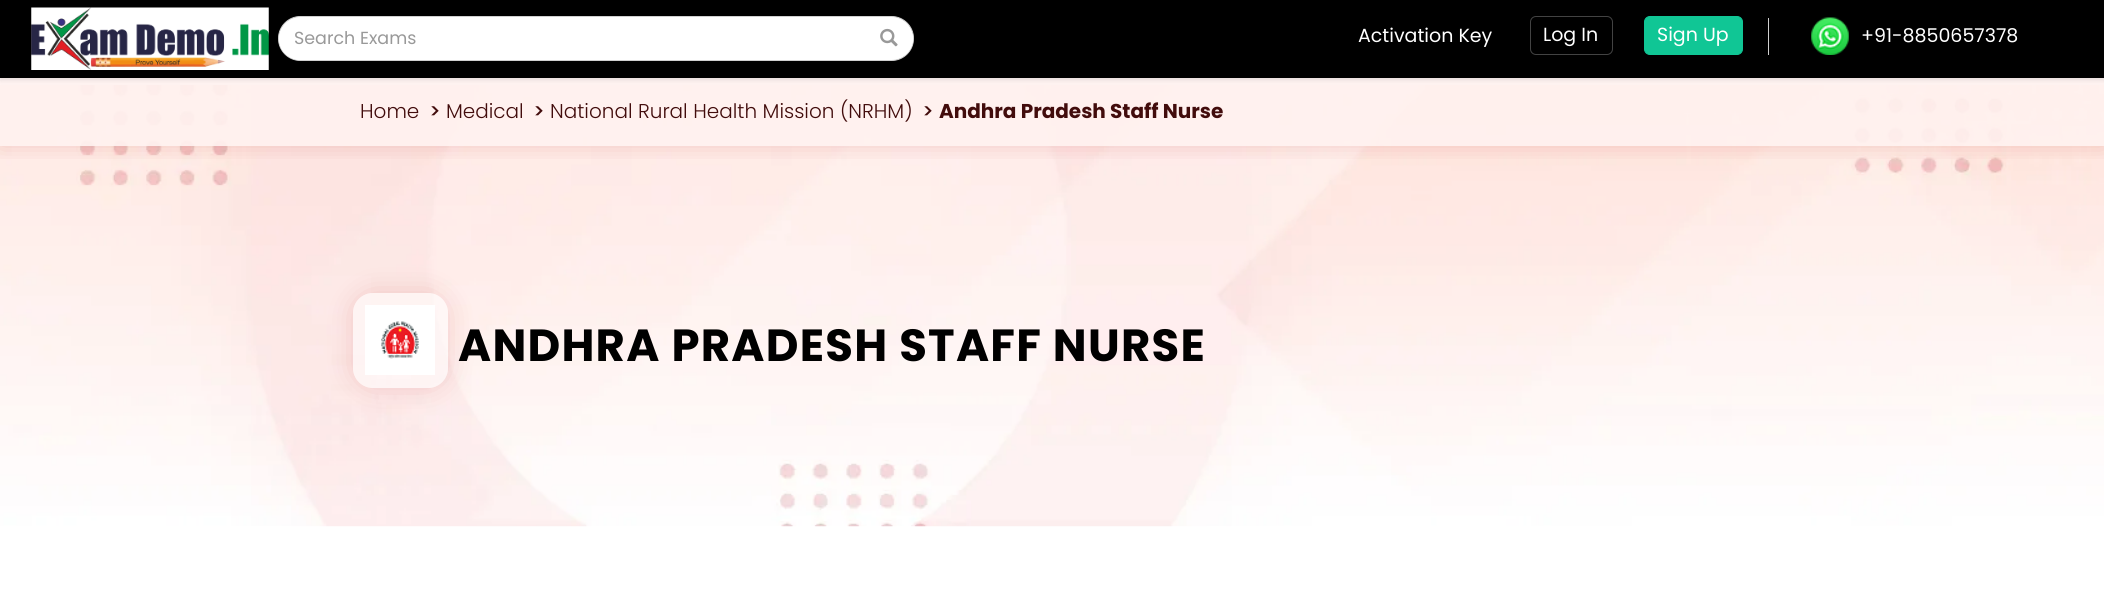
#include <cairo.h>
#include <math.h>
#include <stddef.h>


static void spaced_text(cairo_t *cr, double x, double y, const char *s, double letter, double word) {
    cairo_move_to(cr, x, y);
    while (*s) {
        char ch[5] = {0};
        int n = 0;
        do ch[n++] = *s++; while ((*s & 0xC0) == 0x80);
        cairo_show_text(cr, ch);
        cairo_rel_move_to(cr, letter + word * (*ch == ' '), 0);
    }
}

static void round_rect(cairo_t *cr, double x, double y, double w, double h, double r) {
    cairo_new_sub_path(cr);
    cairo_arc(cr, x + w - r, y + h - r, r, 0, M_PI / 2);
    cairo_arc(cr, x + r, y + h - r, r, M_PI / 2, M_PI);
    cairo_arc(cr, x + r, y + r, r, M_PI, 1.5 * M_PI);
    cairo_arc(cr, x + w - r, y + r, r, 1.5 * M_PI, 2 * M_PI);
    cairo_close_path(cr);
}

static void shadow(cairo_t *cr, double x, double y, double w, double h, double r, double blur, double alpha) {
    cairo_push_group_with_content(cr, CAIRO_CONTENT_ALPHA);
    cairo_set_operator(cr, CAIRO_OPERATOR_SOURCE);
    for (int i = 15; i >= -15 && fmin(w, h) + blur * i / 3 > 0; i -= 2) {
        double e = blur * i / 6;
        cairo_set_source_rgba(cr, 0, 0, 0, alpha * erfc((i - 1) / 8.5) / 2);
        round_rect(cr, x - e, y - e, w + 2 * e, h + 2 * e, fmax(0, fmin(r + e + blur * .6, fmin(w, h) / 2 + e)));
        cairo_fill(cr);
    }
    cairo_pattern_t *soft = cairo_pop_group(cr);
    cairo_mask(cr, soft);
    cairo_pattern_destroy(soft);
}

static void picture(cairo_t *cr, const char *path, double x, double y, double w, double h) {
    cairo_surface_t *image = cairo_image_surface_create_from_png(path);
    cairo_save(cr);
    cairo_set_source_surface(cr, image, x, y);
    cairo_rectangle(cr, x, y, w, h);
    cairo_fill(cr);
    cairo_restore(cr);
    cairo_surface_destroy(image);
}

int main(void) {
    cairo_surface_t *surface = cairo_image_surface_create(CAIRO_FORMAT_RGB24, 2104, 591);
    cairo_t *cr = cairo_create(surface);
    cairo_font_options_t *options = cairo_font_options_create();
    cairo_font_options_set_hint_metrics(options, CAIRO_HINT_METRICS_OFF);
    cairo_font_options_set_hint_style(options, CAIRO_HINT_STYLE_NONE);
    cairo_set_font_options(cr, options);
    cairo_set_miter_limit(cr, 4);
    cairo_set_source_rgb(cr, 1, 1, 1);
    cairo_paint(cr);
    picture(cr, "img4.png", 0, 85, 2104, 442);
    cairo_save(cr);
    cairo_rectangle(cr, 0, 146, 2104, 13);
    cairo_clip(cr);
    cairo_set_source_rgb(cr, 0.706, 0, 0);
    shadow(cr, 0, 78, 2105, 68, 0, 12, 0.15);
    cairo_restore(cr);
    cairo_set_source_rgba(cr, 1, 0.949, 0.941, 0.9);
    cairo_rectangle(cr, 0, 78, 2104, 68);
    cairo_fill(cr);
    cairo_set_source_rgb(cr, 0, 0, 0);
    shadow(cr, 0, 3, 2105, 77, 0, 2.5, 0.1);
    cairo_set_source_rgb(cr, 0, 0, 0);
    cairo_rectangle(cr, 0, 0, 2104, 78);
    cairo_fill(cr);
    picture(cr, "img1.png", 31, 7, 238, 63);
    cairo_set_source_rgb(cr, 1, 1, 1);
    round_rect(cr, 278.5, 16.5, 635, 44, 22);
    cairo_fill_preserve(cr);
    cairo_set_source_rgb(cr, 0.816, 0.816, 0.816);
    cairo_set_line_width(cr, 1);
    cairo_stroke(cr);
    cairo_set_source_rgb(cr, 1, 1, 1);
    cairo_new_path(cr);
    cairo_move_to(cr, 300, 18);
    cairo_line_to(cr, 866, 18);
    cairo_line_to(cr, 866, 60);
    cairo_line_to(cr, 300, 60);
    cairo_curve_to(cr, 288.5, 60, 279, 50.5, 279, 39);
    cairo_curve_to(cr, 279, 27.5, 288.5, 18, 300, 18);
    cairo_close_path(cr);
    cairo_fill(cr);
    cairo_select_font_face(cr, "Poppins", CAIRO_FONT_SLANT_NORMAL, CAIRO_FONT_WEIGHT_NORMAL);
    cairo_set_font_size(cr, 17.5);
    cairo_set_source_rgb(cr, 0.6, 0.6, 0.6);
    cairo_move_to(cr, 294, 44);
    cairo_show_text(cr, "Search Exams");
    cairo_set_source_rgb(cr, 1, 1, 1);
    cairo_new_path(cr);
    cairo_move_to(cr, 865, 19);
    cairo_line_to(cr, 893, 19);
    cairo_curve_to(cr, 904, 19, 913, 28, 913, 39);
    cairo_curve_to(cr, 913, 50, 904, 59, 893, 59);
    cairo_line_to(cr, 865, 59);
    cairo_close_path(cr);
    cairo_fill(cr);
    picture(cr, "img2.png", 880, 28, 18, 19);
    cairo_set_font_size(cr, 19);
    cairo_move_to(cr, 1358, 42);
    cairo_show_text(cr, "Activation Key");
    round_rect(cr, 1530.5, 16.5, 82, 38, 5.5);
    cairo_set_source_rgb(cr, 0.263, 0.263, 0.263);
    cairo_stroke(cr);
    cairo_set_source_rgb(cr, 1, 1, 1);
    cairo_move_to(cr, 1543, 41);
    cairo_show_text(cr, "Log In");
    cairo_set_source_rgb(cr, 0.063, 0.776, 0.584);
    round_rect(cr, 1644.5, 16.5, 98, 38, 5.5);
    cairo_fill_preserve(cr);
    cairo_stroke(cr);
    cairo_set_source_rgb(cr, 1, 1, 1);
    cairo_move_to(cr, 1657, 41);
    cairo_show_text(cr, "Sign Up");
    cairo_set_source_rgb(cr, 0.816, 0.816, 0.816);
    cairo_rectangle(cr, 1768, 18, 1, 37);
    cairo_fill(cr);
    picture(cr, "img3.png", 1811, 17, 38, 38);
    cairo_set_source_rgb(cr, 1, 1, 1);
    cairo_move_to(cr, 1861, 42);
    cairo_show_text(cr, "+91-8850657378");
    cairo_select_font_face(cr, "Poppins Light", CAIRO_FONT_SLANT_NORMAL, CAIRO_FONT_WEIGHT_NORMAL);
    cairo_set_font_size(cr, 20);
    cairo_set_source_rgb(cr, 0.259, 0.047, 0.047);
    cairo_move_to(cr, 360, 118);
    cairo_show_text(cr, "Home");
    cairo_select_font_face(cr, "Poppins Medium", CAIRO_FONT_SLANT_NORMAL, CAIRO_FONT_WEIGHT_NORMAL);
    cairo_move_to(cr, 429, 118);
    cairo_show_text(cr, ">");
    cairo_select_font_face(cr, "Poppins Light", CAIRO_FONT_SLANT_NORMAL, CAIRO_FONT_WEIGHT_NORMAL);
    cairo_move_to(cr, 446, 118);
    cairo_show_text(cr, "Medical");
    cairo_select_font_face(cr, "Poppins Medium", CAIRO_FONT_SLANT_NORMAL, CAIRO_FONT_WEIGHT_NORMAL);
    cairo_move_to(cr, 533, 118);
    cairo_show_text(cr, ">");
    cairo_select_font_face(cr, "Poppins Light", CAIRO_FONT_SLANT_NORMAL, CAIRO_FONT_WEIGHT_NORMAL);
    cairo_move_to(cr, 550, 118);
    cairo_show_text(cr, "National Rural Health Mission (NRHM)");
    cairo_select_font_face(cr, "Poppins Medium", CAIRO_FONT_SLANT_NORMAL, CAIRO_FONT_WEIGHT_NORMAL);
    cairo_move_to(cr, 922, 118);
    cairo_show_text(cr, ">");
    cairo_select_font_face(cr, "Poppins", CAIRO_FONT_SLANT_NORMAL, CAIRO_FONT_WEIGHT_BOLD);
    cairo_move_to(cr, 939, 118);
    cairo_show_text(cr, "Andhra Pradesh Staff Nurse");
    cairo_save(cr);
    cairo_set_fill_rule(cr, CAIRO_FILL_RULE_EVEN_ODD);
    cairo_new_path(cr);
    cairo_move_to(cr, 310, 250);
    cairo_line_to(cr, 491, 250);
    cairo_line_to(cr, 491, 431);
    cairo_line_to(cr, 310, 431);
    cairo_close_path(cr);
    cairo_move_to(cr, 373, 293);
    cairo_line_to(cr, 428, 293);
    cairo_curve_to(cr, 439, 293, 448, 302, 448, 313);
    cairo_line_to(cr, 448, 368);
    cairo_curve_to(cr, 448, 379, 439, 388, 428, 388);
    cairo_line_to(cr, 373, 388);
    cairo_curve_to(cr, 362, 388, 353, 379, 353, 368);
    cairo_line_to(cr, 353, 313);
    cairo_curve_to(cr, 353, 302, 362, 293, 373, 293);
    cairo_close_path(cr);
    cairo_clip(cr);
    cairo_set_source_rgb(cr, 0.706, 0, 0);
    shadow(cr, 353, 293, 95, 95, 20, 14, 0.15);
    cairo_restore(cr);
    cairo_set_source_rgba(cr, 1, 1, 1, 0.5);
    round_rect(cr, 353, 293, 95, 95, 20);
    cairo_fill(cr);
    picture(cr, "img5.png", 365, 305, 70, 70);
    cairo_set_font_size(cr, 45);
    cairo_set_source_rgb(cr, 0, 0, 0);
    spaced_text(cr, 458, 361, "ANDHRA PRADESH STAFF NURSE", 1.25, 0);
    cairo_surface_write_to_png(surface, "page.png");
    cairo_font_options_destroy(options);
    cairo_destroy(cr);
    cairo_surface_destroy(surface);
    return 0;
}
